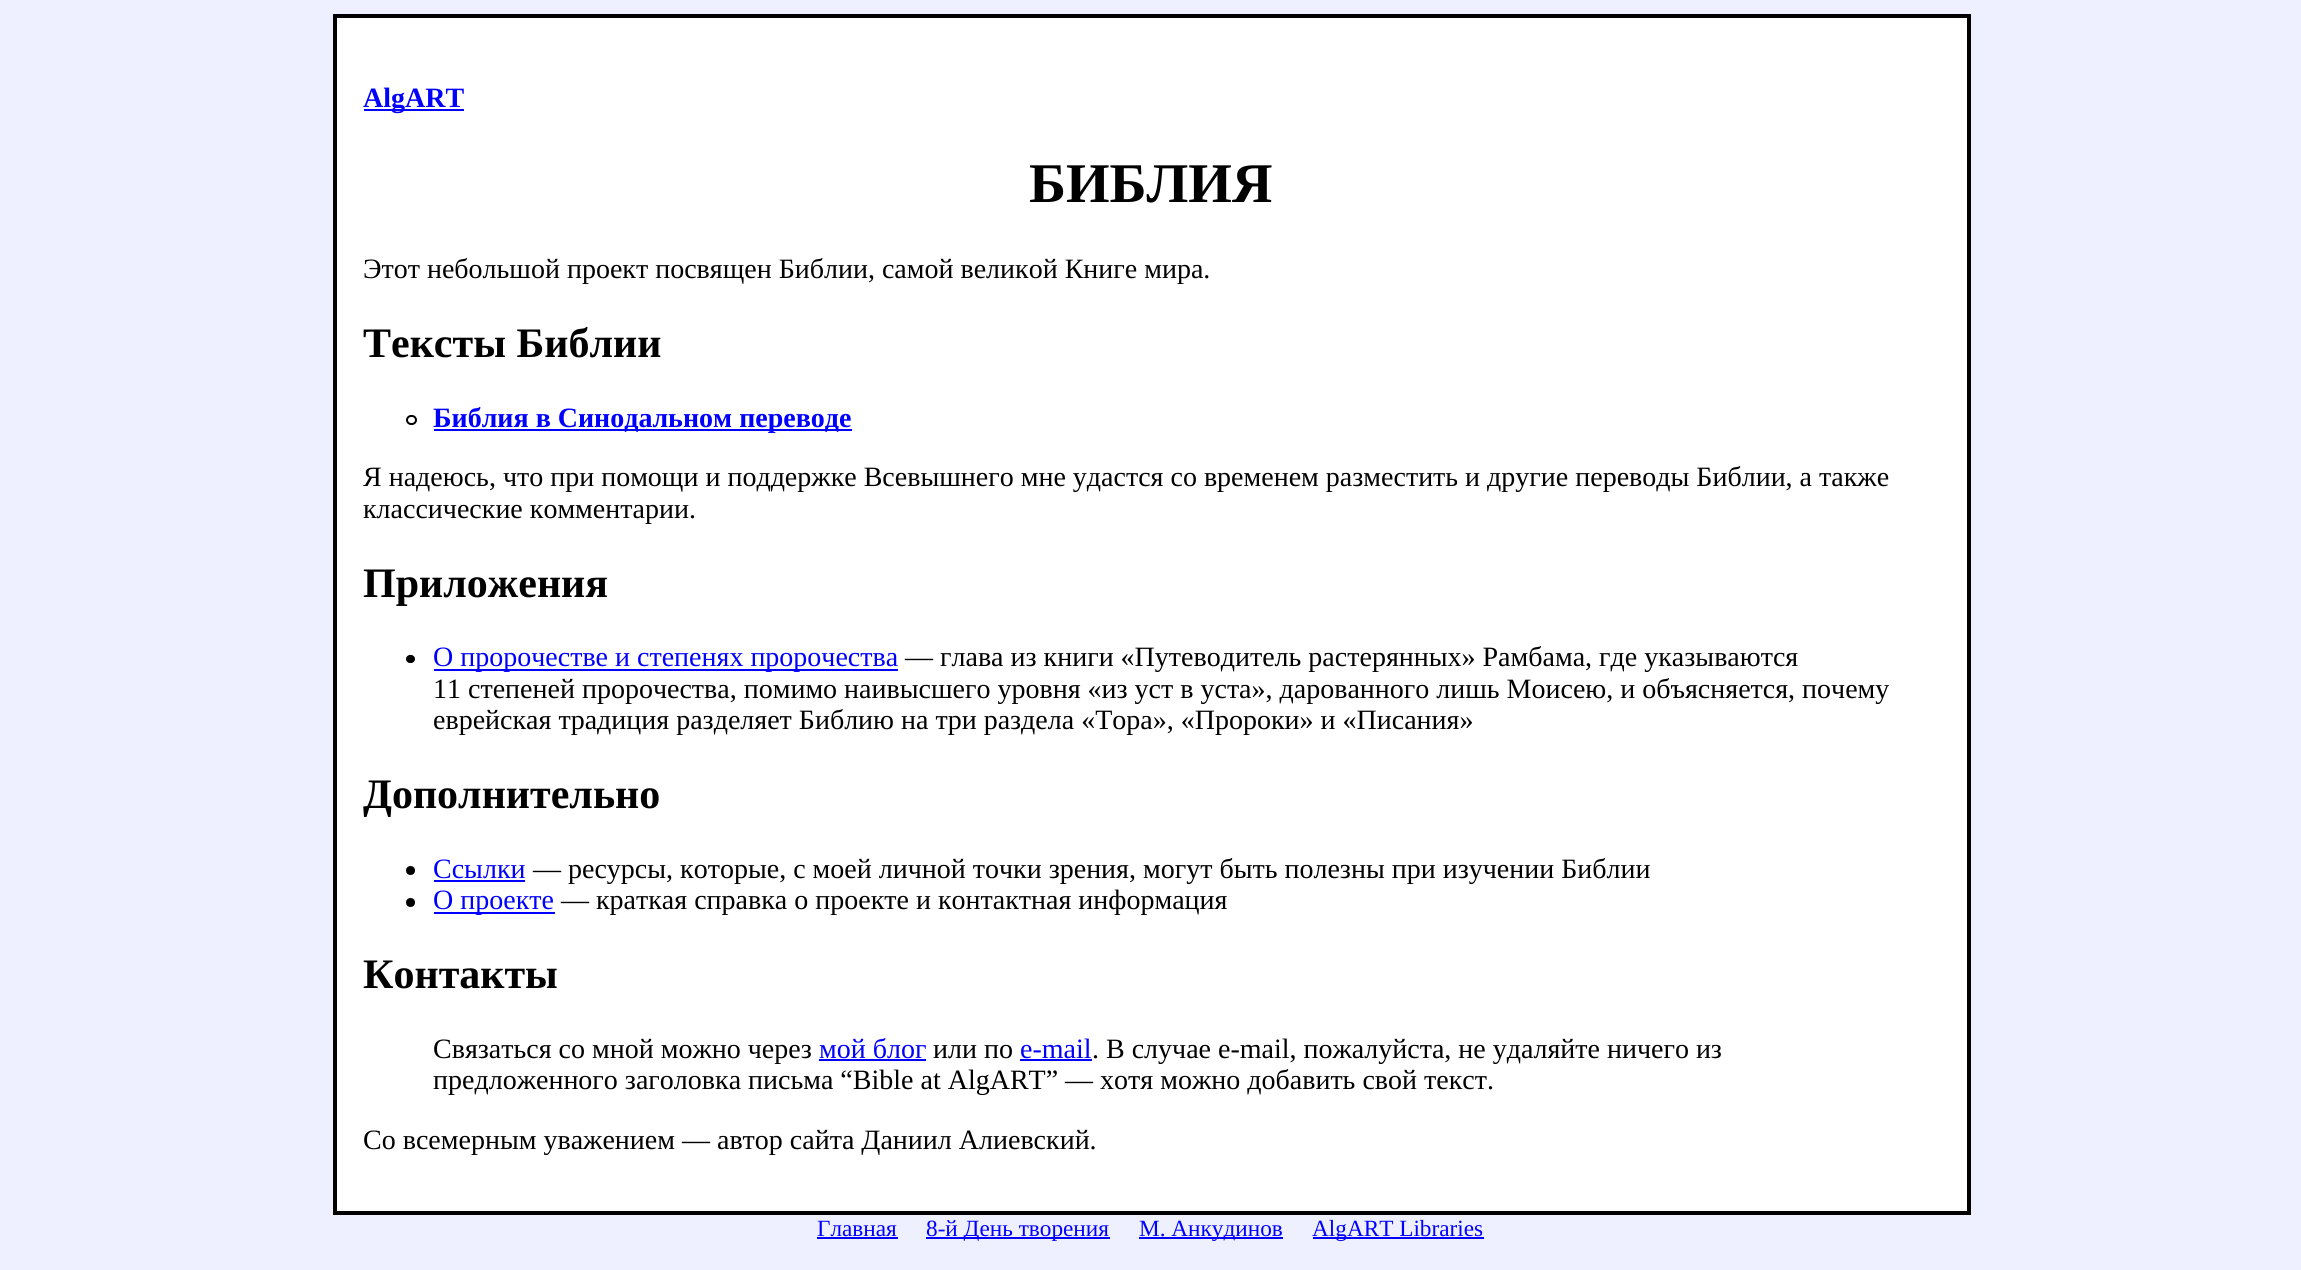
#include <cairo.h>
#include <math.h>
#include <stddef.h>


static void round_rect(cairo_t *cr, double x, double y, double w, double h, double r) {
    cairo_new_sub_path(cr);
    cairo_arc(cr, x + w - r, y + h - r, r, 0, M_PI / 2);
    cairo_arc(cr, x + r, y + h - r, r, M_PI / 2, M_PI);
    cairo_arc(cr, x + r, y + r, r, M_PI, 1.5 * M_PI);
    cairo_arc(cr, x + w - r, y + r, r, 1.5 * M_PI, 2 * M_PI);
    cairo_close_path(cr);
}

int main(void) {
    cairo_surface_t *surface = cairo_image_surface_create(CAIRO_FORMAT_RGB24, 2301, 1270);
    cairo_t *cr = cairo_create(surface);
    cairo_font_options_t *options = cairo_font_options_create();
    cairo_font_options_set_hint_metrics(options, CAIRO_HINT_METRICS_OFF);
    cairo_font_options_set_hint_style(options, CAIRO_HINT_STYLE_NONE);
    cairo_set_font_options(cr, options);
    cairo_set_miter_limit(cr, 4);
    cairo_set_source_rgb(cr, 0.937, 0.941, 1);
    cairo_paint(cr);
    cairo_set_source_rgb(cr, 1, 1, 1);
    cairo_rectangle(cr, 335, 16, 1634, 1197);
    cairo_fill_preserve(cr);
    cairo_set_source_rgb(cr, 0, 0, 0);
    cairo_set_line_width(cr, 4);
    cairo_stroke(cr);
    cairo_set_source_rgb(cr, 0, 0, 1);
    cairo_rectangle(cr, 364, 109, 100, 2);
    cairo_fill(cr);
    cairo_select_font_face(cr, "Liberation Serif", CAIRO_FONT_SLANT_NORMAL, CAIRO_FONT_WEIGHT_BOLD);
    cairo_set_font_size(cr, 28);
    cairo_move_to(cr, 363, 107);
    cairo_show_text(cr, "AlgART");
    cairo_set_font_size(cr, 56);
    cairo_set_source_rgb(cr, 0, 0, 0);
    cairo_move_to(cr, 1029, 202);
    cairo_show_text(cr, "БИБЛИЯ");
    cairo_select_font_face(cr, "Liberation Serif", CAIRO_FONT_SLANT_NORMAL, CAIRO_FONT_WEIGHT_NORMAL);
    cairo_set_font_size(cr, 28);
    cairo_move_to(cr, 363, 278);
    cairo_show_text(cr, "Этот небольшой проект посвящен Библии, самой великой Книге мира.");
    cairo_select_font_face(cr, "Liberation Serif", CAIRO_FONT_SLANT_NORMAL, CAIRO_FONT_WEIGHT_BOLD);
    cairo_set_font_size(cr, 42);
    cairo_move_to(cr, 363, 357);
    cairo_show_text(cr, "Тексты Библии");
    round_rect(cr, 407, 416, 9, 8, 4);
    cairo_set_line_width(cr, 2);
    cairo_stroke(cr);
    cairo_set_source_rgb(cr, 0, 0, 1);
    cairo_rectangle(cr, 434, 429, 418, 2);
    cairo_fill(cr);
    cairo_set_font_size(cr, 28);
    cairo_move_to(cr, 433, 427);
    cairo_show_text(cr, "Библия в Синодальном переводе");
    cairo_select_font_face(cr, "Liberation Serif", CAIRO_FONT_SLANT_NORMAL, CAIRO_FONT_WEIGHT_NORMAL);
    cairo_set_source_rgb(cr, 0, 0, 0);
    cairo_move_to(cr, 363, 486);
    cairo_show_text(cr, "Я надеюсь, что при помощи и поддержке Всевышнего мне удастся со временем разместить и другие переводы Библии, а также");
    cairo_move_to(cr, 363, 518);
    cairo_show_text(cr, "классические комментарии.");
    cairo_select_font_face(cr, "Liberation Serif", CAIRO_FONT_SLANT_NORMAL, CAIRO_FONT_WEIGHT_BOLD);
    cairo_set_font_size(cr, 42);
    cairo_move_to(cr, 363, 597);
    cairo_show_text(cr, "Приложения");
    round_rect(cr, 406, 655, 9, 8, 4);
    cairo_fill(cr);
    cairo_set_source_rgb(cr, 0, 0, 1);
    cairo_rectangle(cr, 434, 669, 464, 2);
    cairo_fill(cr);
    cairo_select_font_face(cr, "Liberation Serif", CAIRO_FONT_SLANT_NORMAL, CAIRO_FONT_WEIGHT_NORMAL);
    cairo_set_font_size(cr, 28);
    cairo_move_to(cr, 433, 666);
    cairo_show_text(cr, "О пророчестве и степенях пророчества");
    cairo_set_source_rgb(cr, 0, 0, 0);
    cairo_move_to(cr, 905, 666);
    cairo_show_text(cr, "— глава из книги «Путеводитель растерянных» Рамбама, где указываются");
    cairo_move_to(cr, 433, 698);
    cairo_show_text(cr, "11 степеней пророчества, помимо наивысшего уровня «из уст в уста», дарованного лишь Моисею, и объясняется, почему");
    cairo_move_to(cr, 433, 729);
    cairo_show_text(cr, "еврейская традиция разделяет Библию на три раздела «Тора», «Пророки» и «Писания»");
    cairo_select_font_face(cr, "Liberation Serif", CAIRO_FONT_SLANT_NORMAL, CAIRO_FONT_WEIGHT_BOLD);
    cairo_set_font_size(cr, 42);
    cairo_move_to(cr, 363, 808);
    cairo_show_text(cr, "Дополнительно");
    cairo_new_path(cr);
    cairo_arc(cr, 410.5, 870.5, 4.5, 0, 2 * M_PI);
    cairo_fill(cr);
    cairo_select_font_face(cr, "Liberation Serif", CAIRO_FONT_SLANT_NORMAL, CAIRO_FONT_WEIGHT_NORMAL);
    cairo_set_font_size(cr, 28);
    cairo_set_source_rgb(cr, 0, 0, 1);
    cairo_move_to(cr, 433, 878);
    cairo_show_text(cr, "Ссылки");
    cairo_rectangle(cr, 434, 880, 91, 2);
    cairo_fill(cr);
    cairo_set_source_rgb(cr, 0, 0, 0);
    cairo_move_to(cr, 533, 878);
    cairo_show_text(cr, "— ресурсы, которые, с моей личной точки зрения, могут быть полезны при изучении Библии");
    cairo_new_path(cr);
    cairo_arc(cr, 410.5, 902.5, 4.5, 0, 2 * M_PI);
    cairo_fill(cr);
    cairo_set_source_rgb(cr, 0, 0, 1);
    cairo_rectangle(cr, 434, 912, 121, 2);
    cairo_fill(cr);
    cairo_move_to(cr, 433, 909);
    cairo_show_text(cr, "О проекте");
    cairo_set_source_rgb(cr, 0, 0, 0);
    cairo_move_to(cr, 561, 909);
    cairo_show_text(cr, "— краткая справка о проекте и контактная информация");
    cairo_select_font_face(cr, "Liberation Serif", CAIRO_FONT_SLANT_NORMAL, CAIRO_FONT_WEIGHT_BOLD);
    cairo_set_font_size(cr, 42);
    cairo_move_to(cr, 363, 988);
    cairo_show_text(cr, "Контакты");
    cairo_select_font_face(cr, "Liberation Serif", CAIRO_FONT_SLANT_NORMAL, CAIRO_FONT_WEIGHT_NORMAL);
    cairo_set_font_size(cr, 28);
    cairo_move_to(cr, 433, 1058);
    cairo_show_text(cr, "Связаться со мной можно через");
    cairo_set_source_rgb(cr, 0, 0, 1);
    cairo_move_to(cr, 819, 1058);
    cairo_show_text(cr, "мой блог");
    cairo_rectangle(cr, 819, 1059, 107, 2);
    cairo_fill(cr);
    cairo_set_source_rgb(cr, 0, 0, 0);
    cairo_move_to(cr, 933, 1058);
    cairo_show_text(cr, "или по");
    cairo_set_source_rgb(cr, 0, 0, 1);
    cairo_move_to(cr, 1020, 1058);
    cairo_show_text(cr, "e-mail");
    cairo_rectangle(cr, 1020, 1059, 72, 2);
    cairo_fill(cr);
    cairo_set_source_rgb(cr, 0, 0, 0);
    cairo_move_to(cr, 1092, 1058);
    cairo_show_text(cr, ". В случае e-mail, пожалуйста, не удаляйте ничего из");
    cairo_move_to(cr, 433, 1089);
    cairo_show_text(cr, "предложенного заголовка письма “Bible at AlgART” — хотя можно добавить свой текст.");
    cairo_move_to(cr, 363, 1149);
    cairo_show_text(cr, "Со всемерным уважением — автор сайта Даниил Алиевский.");
    cairo_set_font_size(cr, 23.25);
    cairo_set_source_rgb(cr, 0, 0, 1);
    cairo_move_to(cr, 817, 1236);
    cairo_show_text(cr, "Главная");
    cairo_rectangle(cr, 817, 1237, 81, 2);
    cairo_fill(cr);
    cairo_rectangle(cr, 926, 1237, 184, 2);
    cairo_fill(cr);
    cairo_move_to(cr, 926, 1236);
    cairo_show_text(cr, "8-й День творения");
    cairo_rectangle(cr, 1139, 1237, 144, 2);
    cairo_fill(cr);
    cairo_move_to(cr, 1139, 1236);
    cairo_show_text(cr, "М. Анкудинов");
    cairo_rectangle(cr, 1313, 1237, 171, 2);
    cairo_fill(cr);
    cairo_move_to(cr, 1312, 1236);
    cairo_show_text(cr, "AlgART Libraries");
    cairo_surface_write_to_png(surface, "page.png");
    cairo_font_options_destroy(options);
    cairo_destroy(cr);
    cairo_surface_destroy(surface);
    return 0;
}
